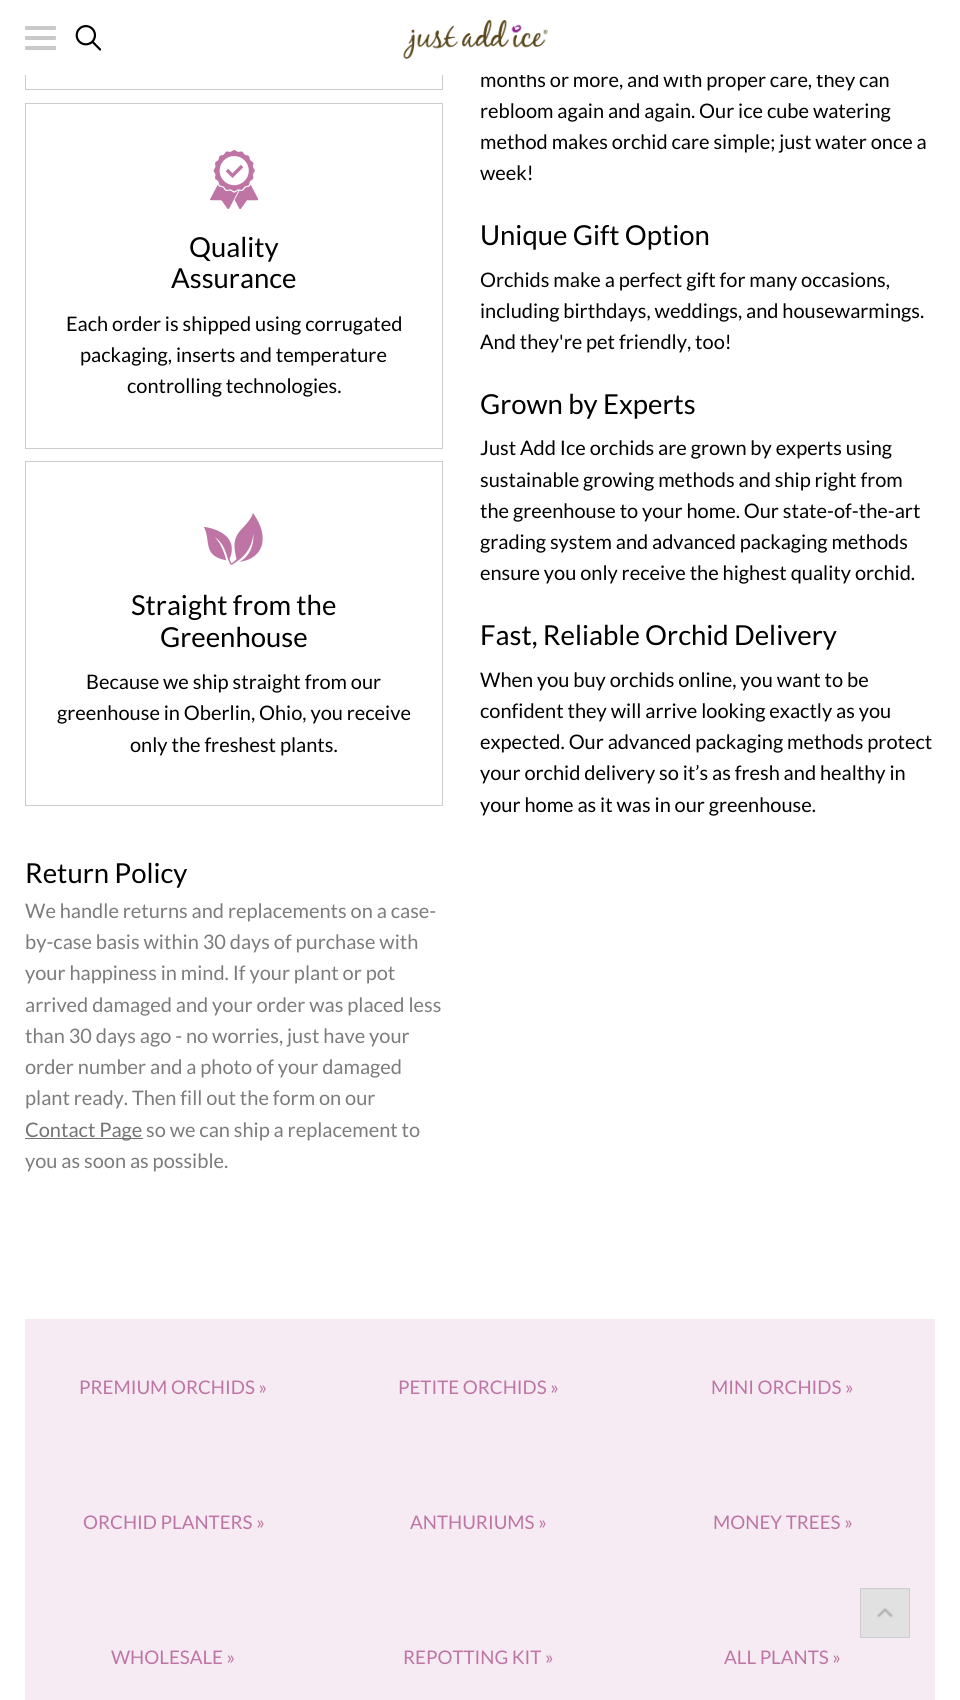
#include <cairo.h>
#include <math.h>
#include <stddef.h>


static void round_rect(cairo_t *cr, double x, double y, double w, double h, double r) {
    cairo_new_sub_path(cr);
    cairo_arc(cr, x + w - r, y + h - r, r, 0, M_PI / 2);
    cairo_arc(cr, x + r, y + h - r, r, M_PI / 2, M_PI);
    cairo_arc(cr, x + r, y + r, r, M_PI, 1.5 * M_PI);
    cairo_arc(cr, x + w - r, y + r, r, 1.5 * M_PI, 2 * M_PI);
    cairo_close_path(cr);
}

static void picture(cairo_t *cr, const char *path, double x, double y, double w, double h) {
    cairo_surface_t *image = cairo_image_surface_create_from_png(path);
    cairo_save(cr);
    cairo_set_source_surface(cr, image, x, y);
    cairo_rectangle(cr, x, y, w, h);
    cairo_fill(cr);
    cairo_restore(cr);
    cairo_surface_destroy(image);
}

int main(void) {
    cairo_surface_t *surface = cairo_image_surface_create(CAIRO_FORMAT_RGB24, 960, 1700);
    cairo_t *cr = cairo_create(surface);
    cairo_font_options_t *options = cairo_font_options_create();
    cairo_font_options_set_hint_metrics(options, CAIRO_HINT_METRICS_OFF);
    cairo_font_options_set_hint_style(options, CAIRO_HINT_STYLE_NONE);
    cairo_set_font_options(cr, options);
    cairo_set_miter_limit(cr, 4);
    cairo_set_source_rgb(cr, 1, 1, 1);
    cairo_paint(cr);
    cairo_rectangle(cr, 25.5, -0.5, 417, 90);
    cairo_set_source_rgb(cr, 0.8, 0.8, 0.8);
    cairo_set_line_width(cr, 1);
    cairo_stroke(cr);
    cairo_select_font_face(cr, "Lato", CAIRO_FONT_SLANT_NORMAL, CAIRO_FONT_WEIGHT_NORMAL);
    cairo_set_font_size(cr, 20);
    cairo_set_source_rgb(cr, 0, 0, 0);
    cairo_move_to(cr, 480, 87);
    cairo_show_text(cr, "months or more, and with proper care, they can");
    cairo_set_source_rgb(cr, 1, 1, 1);
    cairo_rectangle(cr, 25, 0, 802, 75);
    cairo_fill(cr);
    cairo_set_source_rgb(cr, 0.788, 0.788, 0.788);
    round_rect(cr, 25, 26, 31, 4, 1);
    cairo_fill(cr);
    round_rect(cr, 25, 36, 31, 4, 1);
    cairo_fill(cr);
    round_rect(cr, 25, 46, 31, 4, 1);
    cairo_fill(cr);
    picture(cr, "img1.png", 75, 25, 26, 26);
    picture(cr, "img2.png", 403, 20, 145, 39);
    cairo_rectangle(cr, 25.5, 103.5, 417, 345);
    cairo_set_source_rgb(cr, 0.8, 0.8, 0.8);
    cairo_stroke(cr);
    picture(cr, "img3.png", 210, 150, 48, 59);
    cairo_set_font_size(cr, 27.5);
    cairo_set_source_rgb(cr, 0, 0, 0);
    cairo_move_to(cr, 189, 257);
    cairo_show_text(cr, "Quality");
    cairo_move_to(cr, 171, 288);
    cairo_show_text(cr, "Assurance");
    cairo_set_font_size(cr, 20);
    cairo_move_to(cr, 66, 331);
    cairo_show_text(cr, "Each order is shipped using corrugated");
    cairo_move_to(cr, 80, 362);
    cairo_show_text(cr, "packaging, inserts and temperature");
    cairo_move_to(cr, 127, 393);
    cairo_show_text(cr, "controlling technologies.");
    cairo_rectangle(cr, 25.5, 461.5, 417, 344);
    cairo_set_source_rgb(cr, 0.8, 0.8, 0.8);
    cairo_stroke(cr);
    picture(cr, "img4.png", 204, 513, 59, 52);
    cairo_set_font_size(cr, 27.5);
    cairo_set_source_rgb(cr, 0, 0, 0);
    cairo_move_to(cr, 131, 615);
    cairo_show_text(cr, "Straight from the");
    cairo_move_to(cr, 160, 647);
    cairo_show_text(cr, "Greenhouse");
    cairo_set_font_size(cr, 20);
    cairo_move_to(cr, 86, 689);
    cairo_show_text(cr, "Because we ship straight from our");
    cairo_move_to(cr, 57, 720);
    cairo_show_text(cr, "greenhouse in Oberlin, Ohio, you receive");
    cairo_move_to(cr, 130, 752);
    cairo_show_text(cr, "only the freshest plants.");
    cairo_set_font_size(cr, 27.5);
    cairo_move_to(cr, 25, 883);
    cairo_show_text(cr, "Return Policy");
    cairo_set_font_size(cr, 20);
    cairo_set_source_rgb(cr, 0.486, 0.486, 0.486);
    cairo_move_to(cr, 25, 918);
    cairo_show_text(cr, "We handle returns and replacements on a case-");
    cairo_move_to(cr, 25, 949);
    cairo_show_text(cr, "by-case basis within 30 days of purchase with");
    cairo_move_to(cr, 25, 980);
    cairo_show_text(cr, "your happiness in mind. If your plant or pot");
    cairo_move_to(cr, 25, 1012);
    cairo_show_text(cr, "arrived damaged and your order was placed less");
    cairo_move_to(cr, 25, 1043);
    cairo_show_text(cr, "than 30 days ago - no worries, just have your");
    cairo_move_to(cr, 25, 1074);
    cairo_show_text(cr, "order number and a photo of your damaged");
    cairo_move_to(cr, 25, 1105);
    cairo_show_text(cr, "plant ready. Then fill out the form on our");
    cairo_set_source_rgb(cr, 0.455, 0.455, 0.455);
    cairo_rectangle(cr, 25, 1138, 118, 1);
    cairo_fill(cr);
    cairo_move_to(cr, 25, 1137);
    cairo_show_text(cr, "Contact Page");
    cairo_set_source_rgb(cr, 0.486, 0.486, 0.486);
    cairo_move_to(cr, 146, 1137);
    cairo_show_text(cr, "so we can ship a replacement to");
    cairo_move_to(cr, 25, 1168);
    cairo_show_text(cr, "you as soon as possible.");
    cairo_set_source_rgb(cr, 0, 0, 0);
    cairo_move_to(cr, 480, 118);
    cairo_show_text(cr, "rebloom again and again. Our ice cube watering");
    cairo_move_to(cr, 480, 149);
    cairo_show_text(cr, "method makes orchid care simple; just water once a");
    cairo_move_to(cr, 480, 180);
    cairo_show_text(cr, "week!");
    cairo_set_font_size(cr, 27.5);
    cairo_move_to(cr, 480, 245);
    cairo_show_text(cr, "Unique Gift Option");
    cairo_set_font_size(cr, 20);
    cairo_move_to(cr, 480, 287);
    cairo_show_text(cr, "Orchids make a perfect gift for many occasions,");
    cairo_move_to(cr, 480, 318);
    cairo_show_text(cr, "including birthdays, weddings, and housewarmings.");
    cairo_move_to(cr, 480, 349);
    cairo_show_text(cr, "And they're pet friendly, too!");
    cairo_set_font_size(cr, 27.5);
    cairo_move_to(cr, 480, 414);
    cairo_show_text(cr, "Grown by Experts");
    cairo_set_font_size(cr, 20);
    cairo_move_to(cr, 480, 455);
    cairo_show_text(cr, "Just Add Ice orchids are grown by experts using");
    cairo_move_to(cr, 480, 487);
    cairo_show_text(cr, "sustainable growing methods and ship right from");
    cairo_move_to(cr, 480, 518);
    cairo_show_text(cr, "the greenhouse to your home. Our state-of-the-art");
    cairo_move_to(cr, 480, 549);
    cairo_show_text(cr, "grading system and advanced packaging methods");
    cairo_move_to(cr, 480, 580);
    cairo_show_text(cr, "ensure you only receive the highest quality orchid.");
    cairo_set_font_size(cr, 27.5);
    cairo_move_to(cr, 480, 645);
    cairo_show_text(cr, "Fast, Reliable Orchid Delivery");
    cairo_set_font_size(cr, 20);
    cairo_move_to(cr, 480, 687);
    cairo_show_text(cr, "When you buy orchids online, you want to be");
    cairo_move_to(cr, 480, 718);
    cairo_show_text(cr, "confident they will arrive looking exactly as you");
    cairo_move_to(cr, 480, 749);
    cairo_show_text(cr, "expected. Our advanced packaging methods protect");
    cairo_move_to(cr, 480, 780);
    cairo_show_text(cr, "your orchid delivery so it’s as fresh and healthy in");
    cairo_move_to(cr, 480, 812);
    cairo_show_text(cr, "your home as it was in our greenhouse.");
    cairo_set_source_rgb(cr, 0.961, 0.918, 0.949);
    cairo_rectangle(cr, 25, 1319, 910, 381);
    cairo_fill(cr);
    cairo_set_font_size(cr, 18.75);
    cairo_set_source_rgb(cr, 0.745, 0.459, 0.647);
    cairo_move_to(cr, 79, 1394);
    cairo_show_text(cr, "PREMIUM ORCHIDS »");
    cairo_move_to(cr, 398, 1394);
    cairo_show_text(cr, "PETITE ORCHIDS »");
    cairo_move_to(cr, 711, 1394);
    cairo_show_text(cr, "MINI ORCHIDS »");
    cairo_move_to(cr, 83, 1529);
    cairo_show_text(cr, "ORCHID PLANTERS »");
    cairo_move_to(cr, 410, 1529);
    cairo_show_text(cr, "ANTHURIUMS »");
    cairo_move_to(cr, 713, 1529);
    cairo_show_text(cr, "MONEY TREES »");
    cairo_move_to(cr, 111, 1664);
    cairo_show_text(cr, "WHOLESALE »");
    cairo_move_to(cr, 403, 1664);
    cairo_show_text(cr, "REPOTTING KIT »");
    cairo_move_to(cr, 724, 1664);
    cairo_show_text(cr, "ALL PLANTS »");
    cairo_set_source_rgb(cr, 0.882, 0.882, 0.882);
    cairo_rectangle(cr, 861, 1589, 48, 48);
    cairo_fill(cr);
    picture(cr, "img5.png", 877, 1607, 16, 11);
    cairo_rectangle(cr, 860.5, 1588.5, 49, 49);
    cairo_set_source_rgb(cr, 0.8, 0.8, 0.8);
    cairo_stroke(cr);
    cairo_surface_write_to_png(surface, "page.png");
    cairo_font_options_destroy(options);
    cairo_destroy(cr);
    cairo_surface_destroy(surface);
    return 0;
}
